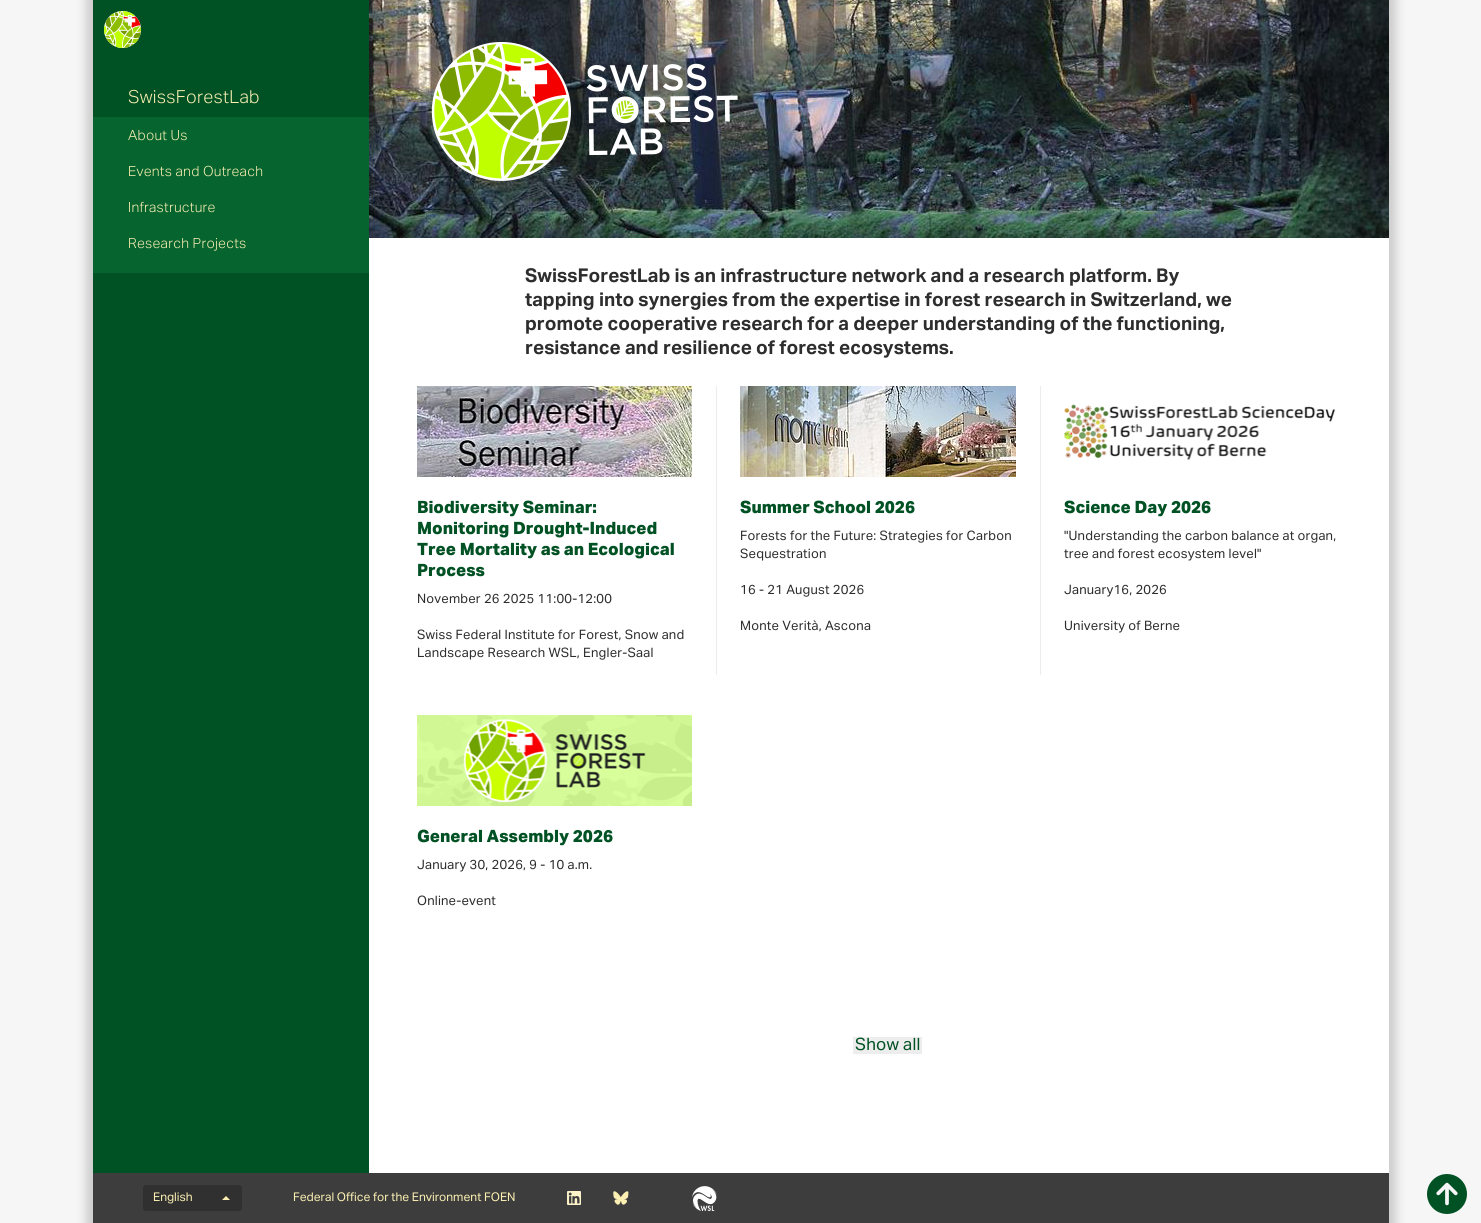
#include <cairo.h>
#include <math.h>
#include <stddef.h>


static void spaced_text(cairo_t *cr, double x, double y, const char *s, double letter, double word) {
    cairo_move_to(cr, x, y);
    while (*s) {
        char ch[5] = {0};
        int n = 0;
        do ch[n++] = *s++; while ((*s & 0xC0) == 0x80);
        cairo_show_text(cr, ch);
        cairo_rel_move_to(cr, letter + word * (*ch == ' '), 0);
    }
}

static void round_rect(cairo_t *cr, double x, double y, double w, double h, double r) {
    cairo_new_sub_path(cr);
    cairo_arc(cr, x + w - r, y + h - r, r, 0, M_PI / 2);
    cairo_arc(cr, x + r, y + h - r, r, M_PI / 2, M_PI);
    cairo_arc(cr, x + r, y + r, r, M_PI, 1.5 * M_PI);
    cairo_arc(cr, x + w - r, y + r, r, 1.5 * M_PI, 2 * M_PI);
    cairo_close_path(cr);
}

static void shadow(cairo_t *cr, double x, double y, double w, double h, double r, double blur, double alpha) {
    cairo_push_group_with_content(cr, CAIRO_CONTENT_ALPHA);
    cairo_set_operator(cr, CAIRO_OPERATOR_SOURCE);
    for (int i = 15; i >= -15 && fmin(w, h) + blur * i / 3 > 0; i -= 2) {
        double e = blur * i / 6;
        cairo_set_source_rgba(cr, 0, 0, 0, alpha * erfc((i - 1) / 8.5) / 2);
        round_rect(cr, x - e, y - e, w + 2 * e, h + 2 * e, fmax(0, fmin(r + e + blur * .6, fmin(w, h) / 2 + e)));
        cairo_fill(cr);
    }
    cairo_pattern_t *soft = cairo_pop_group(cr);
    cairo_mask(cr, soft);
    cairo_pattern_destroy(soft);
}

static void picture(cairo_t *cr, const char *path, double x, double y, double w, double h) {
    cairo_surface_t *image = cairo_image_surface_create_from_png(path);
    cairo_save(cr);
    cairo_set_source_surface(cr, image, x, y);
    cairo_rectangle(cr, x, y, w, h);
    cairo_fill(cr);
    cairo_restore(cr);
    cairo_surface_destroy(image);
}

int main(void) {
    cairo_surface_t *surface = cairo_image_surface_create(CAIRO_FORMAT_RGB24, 1481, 1223);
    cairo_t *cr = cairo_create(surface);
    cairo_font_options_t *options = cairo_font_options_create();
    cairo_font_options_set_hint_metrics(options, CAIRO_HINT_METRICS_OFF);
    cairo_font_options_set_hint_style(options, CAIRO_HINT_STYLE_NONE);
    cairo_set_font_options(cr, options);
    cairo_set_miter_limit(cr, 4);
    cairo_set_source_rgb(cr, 0.961, 0.961, 0.961);
    cairo_paint(cr);
    cairo_set_source_rgb(cr, 0.796, 0.796, 0.796);
    shadow(cr, 86, -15, 1310, 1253, 0, 5, 1);
    cairo_set_source_rgb(cr, 0, 0.318, 0.137);
    cairo_rectangle(cr, 93, 0, 276, 1173);
    cairo_fill(cr);
    picture(cr, "img1.png", 104, 11, 37, 37);
    cairo_select_font_face(cr, "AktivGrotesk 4", CAIRO_FONT_SLANT_NORMAL, CAIRO_FONT_WEIGHT_NORMAL);
    cairo_set_font_size(cr, 18);
    cairo_set_source_rgb(cr, 0.984, 0.941, 0.698);
    spaced_text(cr, 128, 103, "SwissForestLab", 0.25, 0);
    cairo_set_source_rgb(cr, 0.024, 0.392, 0.184);
    cairo_rectangle(cr, 93, 117, 276, 156);
    cairo_fill(cr);
    cairo_set_font_size(cr, 14);
    cairo_set_source_rgb(cr, 0.984, 0.941, 0.698);
    spaced_text(cr, 128, 140, "About Us", 0.25, 0);
    spaced_text(cr, 128, 176, "Events and Outreach", 0.25, 0);
    spaced_text(cr, 128, 212, "Infrastructure", 0.25, 0);
    spaced_text(cr, 128, 248, "Research Projects", 0.25, 0);
    cairo_set_source_rgb(cr, 1, 1, 1);
    cairo_rectangle(cr, 369, 238, 1020, 935);
    cairo_fill(cr);
    picture(cr, "img2.png", 369, 0, 1020, 238);
    cairo_select_font_face(cr, "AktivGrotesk", CAIRO_FONT_SLANT_NORMAL, CAIRO_FONT_WEIGHT_NORMAL);
    cairo_set_font_size(cr, 19);
    cairo_set_source_rgb(cr, 0.176, 0.176, 0.176);
    cairo_move_to(cr, 525, 282);
    cairo_show_text(cr, "SwissForestLab is an infrastructure network and a research platform. By");
    cairo_move_to(cr, 525, 306);
    cairo_show_text(cr, "tapping into synergies from the expertise in forest research in Switzerland, we");
    cairo_move_to(cr, 525, 330);
    cairo_show_text(cr, "promote cooperative research for a deeper understanding of the functioning,");
    cairo_move_to(cr, 525, 354);
    cairo_show_text(cr, "resistance and resilience of forest ecosystems.");
    picture(cr, "img3.png", 417, 386, 275, 91);
    cairo_select_font_face(cr, "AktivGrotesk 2", CAIRO_FONT_SLANT_NORMAL, CAIRO_FONT_WEIGHT_NORMAL);
    cairo_set_font_size(cr, 17);
    cairo_set_source_rgb(cr, 0, 0.318, 0.137);
    cairo_move_to(cr, 417, 513);
    cairo_show_text(cr, "Biodiversity Seminar:");
    cairo_move_to(cr, 417, 534);
    cairo_show_text(cr, "Monitoring Drought-Induced");
    cairo_move_to(cr, 417, 555);
    cairo_show_text(cr, "Tree Mortality as an Ecological");
    cairo_move_to(cr, 417, 576);
    cairo_show_text(cr, "Process");
    cairo_select_font_face(cr, "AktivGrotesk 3", CAIRO_FONT_SLANT_NORMAL, CAIRO_FONT_WEIGHT_NORMAL);
    cairo_set_font_size(cr, 13);
    cairo_set_source_rgb(cr, 0.176, 0.176, 0.176);
    spaced_text(cr, 417, 603, "November 26 2025 11:00-12:00", 0.2, 0);
    spaced_text(cr, 417, 639, "Swiss Federal Institute for Forest, Snow and", 0.2, 0);
    spaced_text(cr, 417, 657, "Landscape Research WSL, Engler-Saal", 0.2, 0);
    cairo_set_source_rgb(cr, 0.922, 0.922, 0.922);
    cairo_rectangle(cr, 716, 386, 1, 289);
    cairo_fill(cr);
    picture(cr, "img4.png", 740, 386, 276, 91);
    cairo_select_font_face(cr, "AktivGrotesk 2", CAIRO_FONT_SLANT_NORMAL, CAIRO_FONT_WEIGHT_NORMAL);
    cairo_set_font_size(cr, 17);
    cairo_set_source_rgb(cr, 0, 0.318, 0.137);
    cairo_move_to(cr, 740, 513);
    cairo_show_text(cr, "Summer School 2026");
    cairo_select_font_face(cr, "AktivGrotesk 3", CAIRO_FONT_SLANT_NORMAL, CAIRO_FONT_WEIGHT_NORMAL);
    cairo_set_font_size(cr, 13);
    cairo_set_source_rgb(cr, 0.176, 0.176, 0.176);
    spaced_text(cr, 740, 540, "Forests for the Future: Strategies for Carbon", 0.2, 0);
    spaced_text(cr, 740, 558, "Sequestration", 0.2, 0);
    spaced_text(cr, 740, 594, "16 - 21 August 2026", 0.2, 0);
    spaced_text(cr, 740, 630, "Monte Verità, Ascona", 0.2, 0);
    cairo_set_source_rgb(cr, 0.922, 0.922, 0.922);
    cairo_rectangle(cr, 1040, 386, 1, 289);
    cairo_fill(cr);
    picture(cr, "img5.png", 1064, 404, 272, 56);
    cairo_select_font_face(cr, "AktivGrotesk 2", CAIRO_FONT_SLANT_NORMAL, CAIRO_FONT_WEIGHT_NORMAL);
    cairo_set_font_size(cr, 17);
    cairo_set_source_rgb(cr, 0, 0.318, 0.137);
    cairo_move_to(cr, 1064, 513);
    cairo_show_text(cr, "Science Day 2026");
    cairo_select_font_face(cr, "AktivGrotesk 3", CAIRO_FONT_SLANT_NORMAL, CAIRO_FONT_WEIGHT_NORMAL);
    cairo_set_font_size(cr, 13);
    cairo_set_source_rgb(cr, 0.176, 0.176, 0.176);
    spaced_text(cr, 1064, 540, "\"Understanding the carbon balance at organ,", 0.2, 0);
    spaced_text(cr, 1064, 558, "tree and forest ecosystem level\"", 0.2, 0);
    spaced_text(cr, 1064, 594, "January16, 2026", 0.2, 0);
    spaced_text(cr, 1064, 630, "University of Berne", 0.2, 0);
    picture(cr, "img6.png", 417, 715, 275, 91);
    cairo_select_font_face(cr, "AktivGrotesk 2", CAIRO_FONT_SLANT_NORMAL, CAIRO_FONT_WEIGHT_NORMAL);
    cairo_set_font_size(cr, 17);
    cairo_set_source_rgb(cr, 0, 0.318, 0.137);
    cairo_move_to(cr, 417, 842);
    cairo_show_text(cr, "General Assembly 2026");
    cairo_select_font_face(cr, "AktivGrotesk 3", CAIRO_FONT_SLANT_NORMAL, CAIRO_FONT_WEIGHT_NORMAL);
    cairo_set_font_size(cr, 13);
    cairo_set_source_rgb(cr, 0.176, 0.176, 0.176);
    spaced_text(cr, 417, 869, "January 30, 2026, 9 - 10 a.m.", 0.2, 0);
    spaced_text(cr, 417, 905, "Online-event", 0.2, 0);
    cairo_set_source_rgb(cr, 0.929, 0.929, 0.929);
    cairo_rectangle(cr, 853, 1037, 69, 17);
    cairo_fill(cr);
    cairo_set_font_size(cr, 17);
    cairo_set_source_rgb(cr, 0, 0.318, 0.137);
    spaced_text(cr, 855, 1050, "Show all", 0.2, 0);
    cairo_set_source_rgb(cr, 0.239, 0.239, 0.239);
    cairo_rectangle(cr, 93, 1173, 1296, 50);
    cairo_fill(cr);
    cairo_set_source_rgb(cr, 0.188, 0.188, 0.188);
    round_rect(cr, 143, 1185, 99, 26, 3);
    cairo_fill(cr);
    cairo_set_font_size(cr, 12);
    cairo_set_source_rgb(cr, 0.984, 0.941, 0.698);
    cairo_move_to(cr, 153, 1201);
    cairo_show_text(cr, "English");
    cairo_new_path(cr);
    cairo_move_to(cr, 230, 1200);
    cairo_line_to(cr, 222, 1200);
    cairo_line_to(cr, 226, 1196);
    cairo_close_path(cr);
    cairo_fill(cr);
    cairo_move_to(cr, 293, 1201);
    cairo_show_text(cr, "Federal Office for the Environment FOEN");
    picture(cr, "img7.png", 567, 1191, 14, 14);
    picture(cr, "img8.png", 613, 1191, 16, 14);
    picture(cr, "img9.png", 692, 1186, 25, 25);
    picture(cr, "img10.png", 1427, 1174, 40, 40);
    cairo_surface_write_to_png(surface, "page.png");
    cairo_font_options_destroy(options);
    cairo_destroy(cr);
    cairo_surface_destroy(surface);
    return 0;
}
